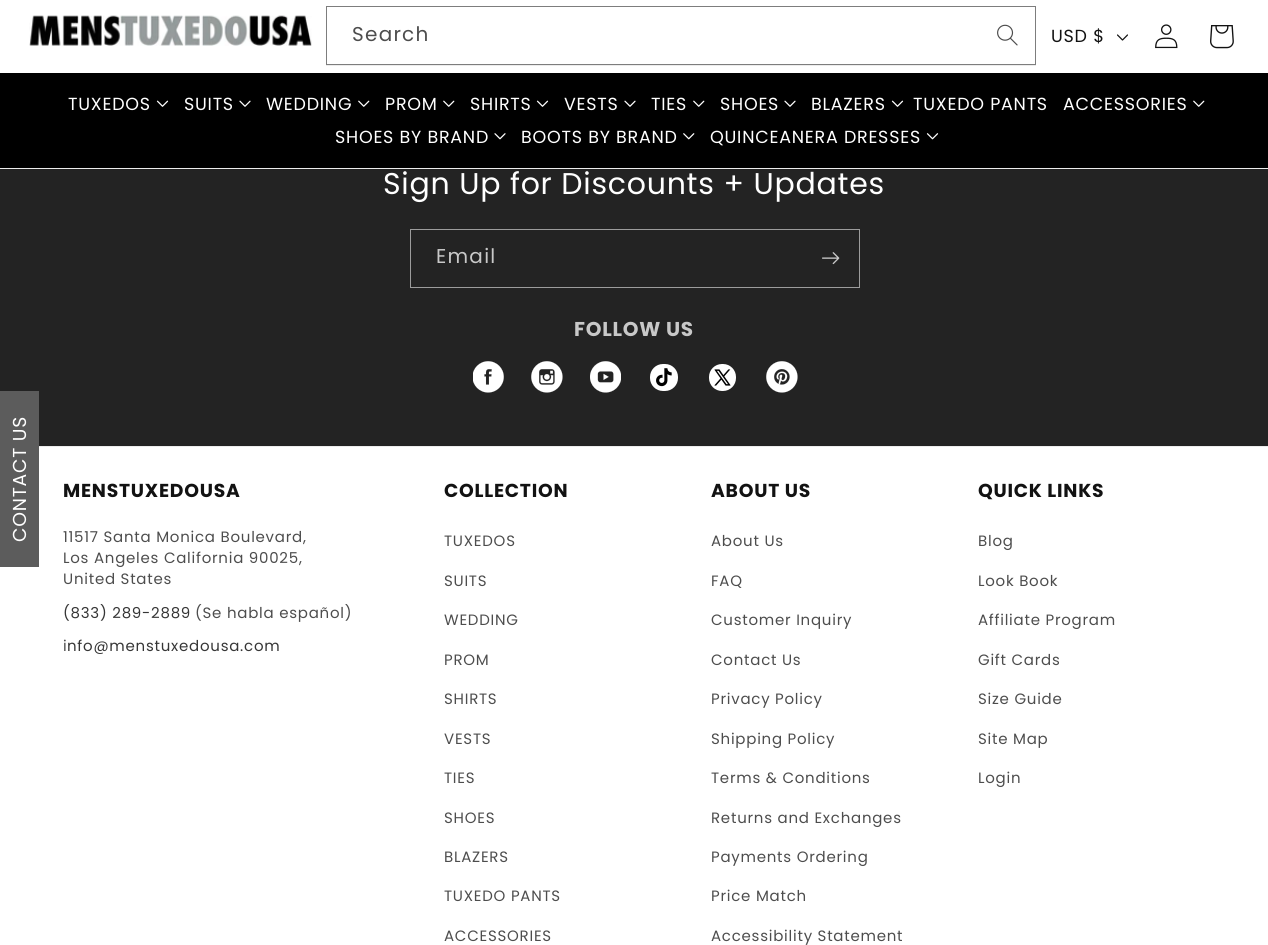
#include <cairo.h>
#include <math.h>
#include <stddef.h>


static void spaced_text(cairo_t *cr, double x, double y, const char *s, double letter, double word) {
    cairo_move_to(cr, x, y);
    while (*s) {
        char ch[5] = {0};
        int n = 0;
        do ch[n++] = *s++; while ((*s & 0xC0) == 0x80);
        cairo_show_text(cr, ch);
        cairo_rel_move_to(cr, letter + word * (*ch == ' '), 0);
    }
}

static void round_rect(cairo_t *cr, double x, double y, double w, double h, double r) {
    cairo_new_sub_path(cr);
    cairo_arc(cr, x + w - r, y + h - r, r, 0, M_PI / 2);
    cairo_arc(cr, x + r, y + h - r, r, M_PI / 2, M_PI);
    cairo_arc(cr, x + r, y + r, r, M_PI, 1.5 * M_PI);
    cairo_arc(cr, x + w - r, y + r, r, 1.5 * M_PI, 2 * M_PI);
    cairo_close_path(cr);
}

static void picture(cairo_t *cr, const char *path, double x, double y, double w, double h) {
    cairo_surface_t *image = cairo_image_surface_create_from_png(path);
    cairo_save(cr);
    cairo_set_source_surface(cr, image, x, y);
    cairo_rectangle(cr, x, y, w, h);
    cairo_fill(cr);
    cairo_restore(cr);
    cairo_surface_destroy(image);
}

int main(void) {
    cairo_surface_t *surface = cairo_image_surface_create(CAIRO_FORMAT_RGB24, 1268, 945);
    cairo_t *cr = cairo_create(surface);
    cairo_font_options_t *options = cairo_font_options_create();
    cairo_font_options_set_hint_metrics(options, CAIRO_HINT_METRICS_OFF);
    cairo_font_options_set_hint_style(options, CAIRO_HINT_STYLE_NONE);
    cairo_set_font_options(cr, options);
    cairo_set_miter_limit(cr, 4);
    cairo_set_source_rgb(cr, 1, 1, 1);
    cairo_paint(cr);
    cairo_set_source_rgb(cr, 0.925, 0.925, 0.925);
    cairo_rectangle(cr, 0, 168, 1268, 1);
    cairo_fill(cr);
    picture(cr, "img1.png", 29, 15, 283, 31);
    cairo_rectangle(cr, 326, 65, 710, 1);
    cairo_fill(cr);
    picture(cr, "img2.png", 997, 24, 21, 22);
    cairo_rectangle(cr, 326.5, 6.5, 709, 58);
    cairo_set_source_rgb(cr, 0.49, 0.49, 0.49);
    cairo_set_line_width(cr, 1);
    cairo_stroke(cr);
    cairo_select_font_face(cr, "Poppins", CAIRO_FONT_SLANT_NORMAL, CAIRO_FONT_WEIGHT_NORMAL);
    cairo_set_font_size(cr, 20);
    cairo_set_source_rgb(cr, 0.302, 0.302, 0.302);
    spaced_text(cr, 352, 41, "Search", 1.25, 0);
    cairo_set_font_size(cr, 17.5);
    cairo_set_source_rgb(cr, 0.071, 0.071, 0.071);
    spaced_text(cr, 1051, 42, "USD $", 0.75, 0);
    picture(cr, "img3.png", 1117, 34, 11, 7);
    picture(cr, "img4.png", 1155, 24, 23, 25);
    picture(cr, "img5.png", 1210, 25, 24, 24);
    cairo_set_source_rgb(cr, 0, 0, 0);
    cairo_rectangle(cr, 0, 73, 1268, 95);
    cairo_fill(cr);
    cairo_set_source_rgb(cr, 1, 1, 1);
    spaced_text(cr, 68, 110, "TUXEDOS", 0.75, 0);
    picture(cr, "img6.png", 156, 100, 13, 7);
    spaced_text(cr, 184, 110, "SUITS", 0.75, 0);
    picture(cr, "img7.png", 239, 100, 12, 7);
    spaced_text(cr, 266, 110, "WEDDING", 0.75, 0);
    picture(cr, "img8.png", 358, 100, 12, 7);
    spaced_text(cr, 385, 110, "PROM", 0.75, 0);
    picture(cr, "img8.png", 443, 100, 12, 7);
    spaced_text(cr, 470, 110, "SHIRTS", 0.75, 0);
    picture(cr, "img6.png", 536, 100, 13, 7);
    spaced_text(cr, 564, 110, "VESTS", 0.75, 0);
    picture(cr, "img7.png", 624, 100, 12, 7);
    spaced_text(cr, 651, 110, "TIES", 0.75, 0);
    picture(cr, "img8.png", 693, 100, 12, 7);
    spaced_text(cr, 720, 110, "SHOES", 0.75, 0);
    picture(cr, "img7.png", 784, 100, 12, 7);
    spaced_text(cr, 811, 110, "BLAZERS", 0.75, 0);
    picture(cr, "img6.png", 891, 100, 13, 7);
    spaced_text(cr, 913, 110, "TUXEDO PANTS", 0.75, 0);
    spaced_text(cr, 1063, 110, "ACCESSORIES", 0.75, 0);
    picture(cr, "img8.png", 1193, 100, 12, 7);
    spaced_text(cr, 335, 143, "SHOES BY BRAND", 0.75, 0);
    picture(cr, "img9.png", 494, 133, 12, 7);
    spaced_text(cr, 521, 143, "BOOTS BY BRAND", 0.75, 0);
    picture(cr, "img10.png", 683, 133, 12, 7);
    spaced_text(cr, 710, 143, "QUINCEANERA DRESSES", 0.75, 0);
    picture(cr, "img11.png", 926, 133, 13, 7);
    cairo_set_source_rgb(cr, 0.137, 0.137, 0.137);
    cairo_rectangle(cr, 0, 169, 1268, 277);
    cairo_fill(cr);
    picture(cr, "img12.png", 473, 361, 31, 32);
    picture(cr, "img13.png", 531, 361, 32, 32);
    picture(cr, "img14.png", 590, 361, 31, 32);
    cairo_set_source_rgb(cr, 1, 1, 1);
    round_rect(cr, 650, 364, 28, 27, 13);
    cairo_fill(cr);
    picture(cr, "img15.png", 656, 368, 16, 19);
    round_rect(cr, 709, 364, 27, 27, 13);
    cairo_fill(cr);
    picture(cr, "img16.png", 714, 369, 17, 17);
    cairo_arc(cr, 722.5, 377.5, 12, 0, 2 * M_PI);
    cairo_stroke(cr);
    picture(cr, "img17.png", 766, 361, 32, 32);
    cairo_set_font_size(cr, 30);
    spaced_text(cr, 383, 194, "Sign Up for Discounts + Updates", 0.75, 0);
    cairo_rectangle(cr, 410.5, 229.5, 449, 58);
    cairo_set_source_rgb(cr, 0.612, 0.612, 0.612);
    cairo_stroke(cr);
    cairo_set_font_size(cr, 20);
    cairo_set_source_rgb(cr, 0.784, 0.784, 0.784);
    spaced_text(cr, 436, 263, "Email", 1.25, 0);
    picture(cr, "img18.png", 822, 252, 18, 13);
    cairo_select_font_face(cr, "Poppins", CAIRO_FONT_SLANT_NORMAL, CAIRO_FONT_WEIGHT_BOLD);
    spaced_text(cr, 574, 336, "FOLLOW US", 0.75, 0);
    cairo_set_source_rgb(cr, 0.361, 0.361, 0.361);
    cairo_rectangle(cr, 0, 391, 39, 176);
    cairo_fill(cr);
    cairo_select_font_face(cr, "Poppins", CAIRO_FONT_SLANT_NORMAL, CAIRO_FONT_WEIGHT_NORMAL);
    cairo_set_font_size(cr, 18.75);
    cairo_set_source_rgb(cr, 1, 1, 1);
    cairo_save(cr);
    cairo_translate(cr, 26, 542);
    cairo_rotate(cr, -90 * M_PI / 180);
    spaced_text(cr, 0, 0, "CONTACT US", 0.75, 0);
    cairo_restore(cr);
    cairo_set_source_rgb(cr, 0.925, 0.925, 0.925);
    cairo_rectangle(cr, 39, 446, 1229, 1);
    cairo_fill(cr);
    cairo_select_font_face(cr, "Poppins", CAIRO_FONT_SLANT_NORMAL, CAIRO_FONT_WEIGHT_BOLD);
    cairo_set_source_rgb(cr, 0.071, 0.071, 0.071);
    spaced_text(cr, 63, 497, "MENSTUXEDOUSA", 0.75, 0);
    cairo_select_font_face(cr, "Poppins", CAIRO_FONT_SLANT_NORMAL, CAIRO_FONT_WEIGHT_NORMAL);
    cairo_set_font_size(cr, 15);
    cairo_set_source_rgb(cr, 0.302, 0.302, 0.302);
    spaced_text(cr, 63, 542, "11517 Santa Monica Boulevard,", 0.75, 0);
    spaced_text(cr, 63, 563, "Los Angeles California 90025,", 0.75, 0);
    spaced_text(cr, 63, 584, "United States", 0.75, 0);
    cairo_set_source_rgb(cr, 0.212, 0.212, 0.212);
    spaced_text(cr, 63, 618, "(833) 289-2889", 0.75, 0);
    cairo_set_source_rgb(cr, 0.302, 0.302, 0.302);
    spaced_text(cr, 195, 618, "(Se habla español)", 0.75, 0);
    spaced_text(cr, 63, 651, "i", 0.75, 0);
    cairo_set_source_rgb(cr, 0.212, 0.212, 0.212);
    spaced_text(cr, 67, 651, "nfo@menstuxedousa.com", 0.75, 0);
    cairo_select_font_face(cr, "Poppins", CAIRO_FONT_SLANT_NORMAL, CAIRO_FONT_WEIGHT_BOLD);
    cairo_set_font_size(cr, 18.75);
    cairo_set_source_rgb(cr, 0.071, 0.071, 0.071);
    spaced_text(cr, 444, 497, "COLLECTION", 0.75, 0);
    cairo_select_font_face(cr, "Poppins", CAIRO_FONT_SLANT_NORMAL, CAIRO_FONT_WEIGHT_NORMAL);
    cairo_set_font_size(cr, 15);
    cairo_set_source_rgb(cr, 0.302, 0.302, 0.302);
    spaced_text(cr, 444, 546, "TUXEDOS", 0.75, 0);
    spaced_text(cr, 444, 586, "SUITS", 0.75, 0);
    spaced_text(cr, 444, 625, "WEDDING", 0.75, 0);
    spaced_text(cr, 444, 665, "PROM", 0.75, 0);
    spaced_text(cr, 444, 704, "SHIRTS", 0.75, 0);
    spaced_text(cr, 444, 744, "VESTS", 0.75, 0);
    spaced_text(cr, 444, 783, "TIES", 0.75, 0);
    spaced_text(cr, 444, 823, "SHOES", 0.75, 0);
    spaced_text(cr, 444, 862, "BLAZERS", 0.75, 0);
    spaced_text(cr, 444, 901, "TUXEDO PANTS", 0.75, 0);
    spaced_text(cr, 444, 941, "ACCESSORIES", 0.75, 0);
    cairo_select_font_face(cr, "Poppins", CAIRO_FONT_SLANT_NORMAL, CAIRO_FONT_WEIGHT_BOLD);
    cairo_set_font_size(cr, 18.75);
    cairo_set_source_rgb(cr, 0.071, 0.071, 0.071);
    spaced_text(cr, 711, 497, "ABOUT US", 0.75, 0);
    cairo_select_font_face(cr, "Poppins", CAIRO_FONT_SLANT_NORMAL, CAIRO_FONT_WEIGHT_NORMAL);
    cairo_set_font_size(cr, 15);
    cairo_set_source_rgb(cr, 0.302, 0.302, 0.302);
    spaced_text(cr, 711, 546, "About Us", 0.75, 0);
    spaced_text(cr, 711, 586, "FAQ", 0.75, 0);
    spaced_text(cr, 711, 625, "Customer Inquiry", 0.75, 0);
    spaced_text(cr, 711, 665, "Contact Us", 0.75, 0);
    spaced_text(cr, 711, 704, "Privacy Policy", 0.75, 0);
    spaced_text(cr, 711, 744, "Shipping Policy", 0.75, 0);
    spaced_text(cr, 711, 783, "Terms & Conditions", 0.75, 0);
    spaced_text(cr, 711, 823, "Returns and Exchanges", 0.75, 0);
    spaced_text(cr, 711, 862, "Payments Ordering", 0.75, 0);
    spaced_text(cr, 711, 901, "Price Match", 0.75, 0);
    spaced_text(cr, 711, 941, "Accessibility Statement", 0.75, 0);
    cairo_select_font_face(cr, "Poppins", CAIRO_FONT_SLANT_NORMAL, CAIRO_FONT_WEIGHT_BOLD);
    cairo_set_font_size(cr, 18.75);
    cairo_set_source_rgb(cr, 0.071, 0.071, 0.071);
    spaced_text(cr, 978, 497, "QUICK LINKS", 0.75, 0);
    cairo_select_font_face(cr, "Poppins", CAIRO_FONT_SLANT_NORMAL, CAIRO_FONT_WEIGHT_NORMAL);
    cairo_set_font_size(cr, 15);
    cairo_set_source_rgb(cr, 0.302, 0.302, 0.302);
    spaced_text(cr, 978, 546, "Blog", 0.75, 0);
    spaced_text(cr, 978, 586, "Look Book", 0.75, 0);
    spaced_text(cr, 978, 625, "Affiliate Program", 0.75, 0);
    spaced_text(cr, 978, 665, "Gift Cards", 0.75, 0);
    spaced_text(cr, 978, 704, "Size Guide", 0.75, 0);
    spaced_text(cr, 978, 744, "Site Map", 0.75, 0);
    spaced_text(cr, 978, 783, "Login", 0.75, 0);
    cairo_surface_write_to_png(surface, "page.png");
    cairo_font_options_destroy(options);
    cairo_destroy(cr);
    cairo_surface_destroy(surface);
    return 0;
}
